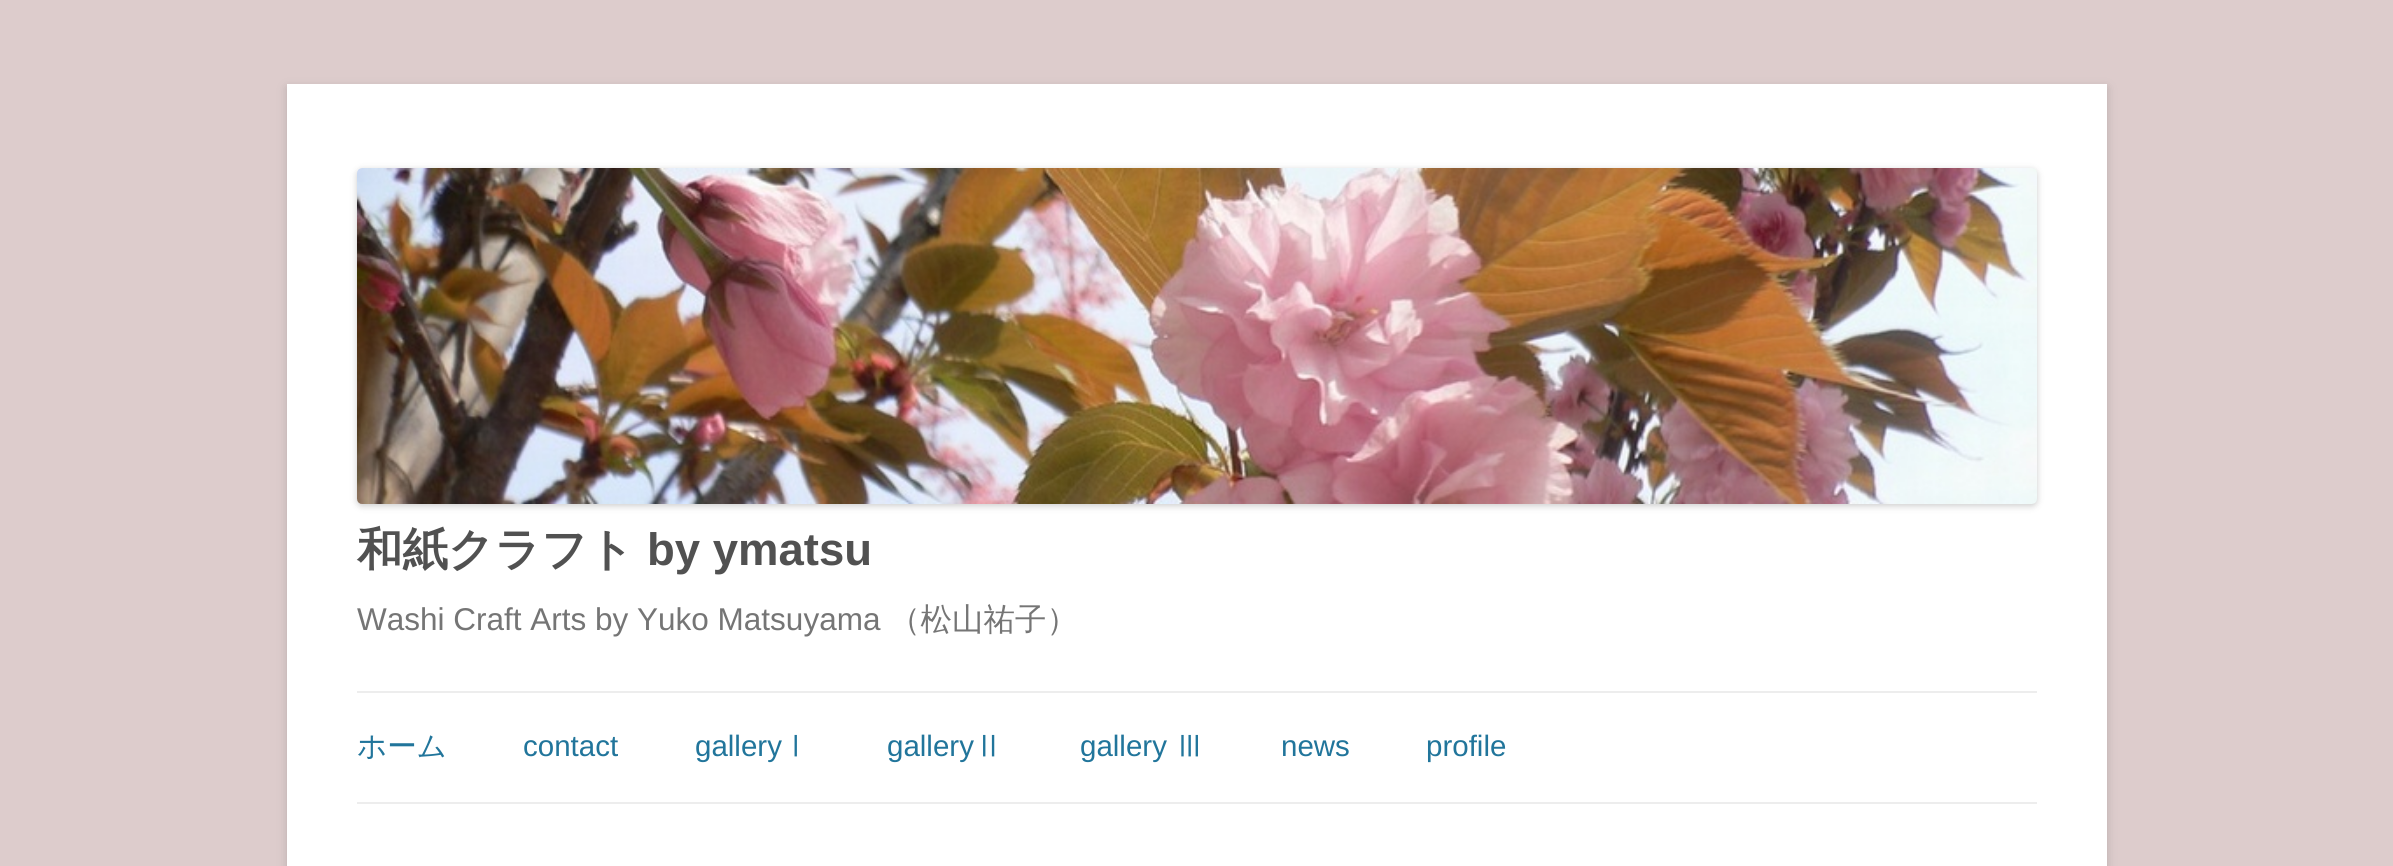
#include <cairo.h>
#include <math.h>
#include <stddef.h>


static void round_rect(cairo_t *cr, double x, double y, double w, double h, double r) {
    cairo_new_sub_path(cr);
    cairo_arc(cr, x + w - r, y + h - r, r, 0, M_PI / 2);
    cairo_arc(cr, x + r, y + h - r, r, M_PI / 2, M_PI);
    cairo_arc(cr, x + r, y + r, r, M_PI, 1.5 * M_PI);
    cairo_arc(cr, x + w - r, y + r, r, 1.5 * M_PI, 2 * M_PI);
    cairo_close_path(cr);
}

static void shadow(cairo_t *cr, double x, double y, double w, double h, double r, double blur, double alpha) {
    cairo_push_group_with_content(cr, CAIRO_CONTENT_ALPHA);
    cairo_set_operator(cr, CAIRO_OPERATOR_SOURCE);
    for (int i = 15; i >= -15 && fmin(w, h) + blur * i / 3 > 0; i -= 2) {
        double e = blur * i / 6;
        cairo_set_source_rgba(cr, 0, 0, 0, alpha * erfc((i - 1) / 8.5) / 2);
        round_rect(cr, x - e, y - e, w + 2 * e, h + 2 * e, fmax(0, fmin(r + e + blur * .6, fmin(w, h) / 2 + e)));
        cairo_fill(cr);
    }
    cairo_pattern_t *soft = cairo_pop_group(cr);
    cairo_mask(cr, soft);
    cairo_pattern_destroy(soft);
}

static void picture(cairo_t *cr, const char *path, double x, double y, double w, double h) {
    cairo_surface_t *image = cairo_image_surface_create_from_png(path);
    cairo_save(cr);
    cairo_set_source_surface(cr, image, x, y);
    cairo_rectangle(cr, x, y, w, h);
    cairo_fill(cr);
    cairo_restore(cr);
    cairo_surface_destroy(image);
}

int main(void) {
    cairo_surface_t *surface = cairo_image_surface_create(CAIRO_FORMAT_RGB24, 2393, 866);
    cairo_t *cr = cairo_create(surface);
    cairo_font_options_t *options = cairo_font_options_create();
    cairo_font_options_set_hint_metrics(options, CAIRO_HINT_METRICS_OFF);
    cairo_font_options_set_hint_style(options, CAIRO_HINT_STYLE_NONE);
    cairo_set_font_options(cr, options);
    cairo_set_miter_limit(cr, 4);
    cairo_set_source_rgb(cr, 0.867, 0.8, 0.8);
    cairo_paint(cr);
    cairo_set_source_rgb(cr, 0.392, 0.392, 0.392);
    shadow(cr, 287, 88, 1820, 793, 0, 5, 0.3);
    cairo_set_source_rgb(cr, 1, 1, 1);
    cairo_rectangle(cr, 287, 84, 1820, 782);
    cairo_fill(cr);
    cairo_set_source_rgb(cr, 0, 0, 0);
    shadow(cr, 357, 170, 1680, 336, 5, 3.5, 0.2);
    picture(cr, "img1.png", 357, 168, 1680, 336);
    cairo_select_font_face(cr, "WenQuanYi Zen Hei", CAIRO_FONT_SLANT_NORMAL, CAIRO_FONT_WEIGHT_BOLD);
    cairo_set_font_size(cr, 45.5);
    cairo_set_source_rgb(cr, 0.318, 0.318, 0.318);
    cairo_move_to(cr, 357, 565);
    cairo_show_text(cr, "和紙クラフト");
    cairo_select_font_face(cr, "Liberation Sans", CAIRO_FONT_SLANT_NORMAL, CAIRO_FONT_WEIGHT_BOLD);
    cairo_move_to(cr, 647, 565);
    cairo_show_text(cr, "by ymatsu");
    cairo_select_font_face(cr, "Liberation Sans", CAIRO_FONT_SLANT_NORMAL, CAIRO_FONT_WEIGHT_NORMAL);
    cairo_set_font_size(cr, 31.5);
    cairo_set_source_rgb(cr, 0.459, 0.459, 0.459);
    cairo_move_to(cr, 357, 630);
    cairo_show_text(cr, "Washi Craft Arts by Yuko Matsuyama");
    cairo_select_font_face(cr, "WenQuanYi Zen Hei Medium", CAIRO_FONT_SLANT_NORMAL, CAIRO_FONT_WEIGHT_NORMAL);
    cairo_move_to(cr, 889, 630);
    cairo_show_text(cr, "（松山祐子）");
    cairo_set_source_rgb(cr, 0.929, 0.929, 0.929);
    cairo_rectangle(cr, 357, 691, 1680, 2);
    cairo_fill(cr);
    cairo_rectangle(cr, 357, 802, 1680, 2);
    cairo_fill(cr);
    cairo_set_font_size(cr, 29.5);
    cairo_set_source_rgb(cr, 0.129, 0.459, 0.608);
    cairo_move_to(cr, 357, 756);
    cairo_show_text(cr, "ホーム");
    cairo_select_font_face(cr, "Liberation Sans", CAIRO_FONT_SLANT_NORMAL, CAIRO_FONT_WEIGHT_NORMAL);
    cairo_move_to(cr, 523, 756);
    cairo_show_text(cr, "contact");
    cairo_move_to(cr, 695, 756);
    cairo_show_text(cr, "gallery");
    cairo_select_font_face(cr, "WenQuanYi Zen Hei Medium", CAIRO_FONT_SLANT_NORMAL, CAIRO_FONT_WEIGHT_NORMAL);
    cairo_move_to(cr, 781, 756);
    cairo_show_text(cr, "Ⅰ");
    cairo_select_font_face(cr, "Liberation Sans", CAIRO_FONT_SLANT_NORMAL, CAIRO_FONT_WEIGHT_NORMAL);
    cairo_move_to(cr, 887, 756);
    cairo_show_text(cr, "gallery");
    cairo_select_font_face(cr, "WenQuanYi Zen Hei Medium", CAIRO_FONT_SLANT_NORMAL, CAIRO_FONT_WEIGHT_NORMAL);
    cairo_move_to(cr, 974, 756);
    cairo_show_text(cr, "Ⅱ");
    cairo_select_font_face(cr, "Liberation Sans", CAIRO_FONT_SLANT_NORMAL, CAIRO_FONT_WEIGHT_NORMAL);
    cairo_move_to(cr, 1080, 756);
    cairo_show_text(cr, "gallery");
    cairo_select_font_face(cr, "WenQuanYi Zen Hei Medium", CAIRO_FONT_SLANT_NORMAL, CAIRO_FONT_WEIGHT_NORMAL);
    cairo_move_to(cr, 1175, 756);
    cairo_show_text(cr, "Ⅲ");
    cairo_select_font_face(cr, "Liberation Sans", CAIRO_FONT_SLANT_NORMAL, CAIRO_FONT_WEIGHT_NORMAL);
    cairo_move_to(cr, 1281, 756);
    cairo_show_text(cr, "news");
    cairo_move_to(cr, 1426, 756);
    cairo_show_text(cr, "profile");
    cairo_surface_write_to_png(surface, "page.png");
    cairo_font_options_destroy(options);
    cairo_destroy(cr);
    cairo_surface_destroy(surface);
    return 0;
}
